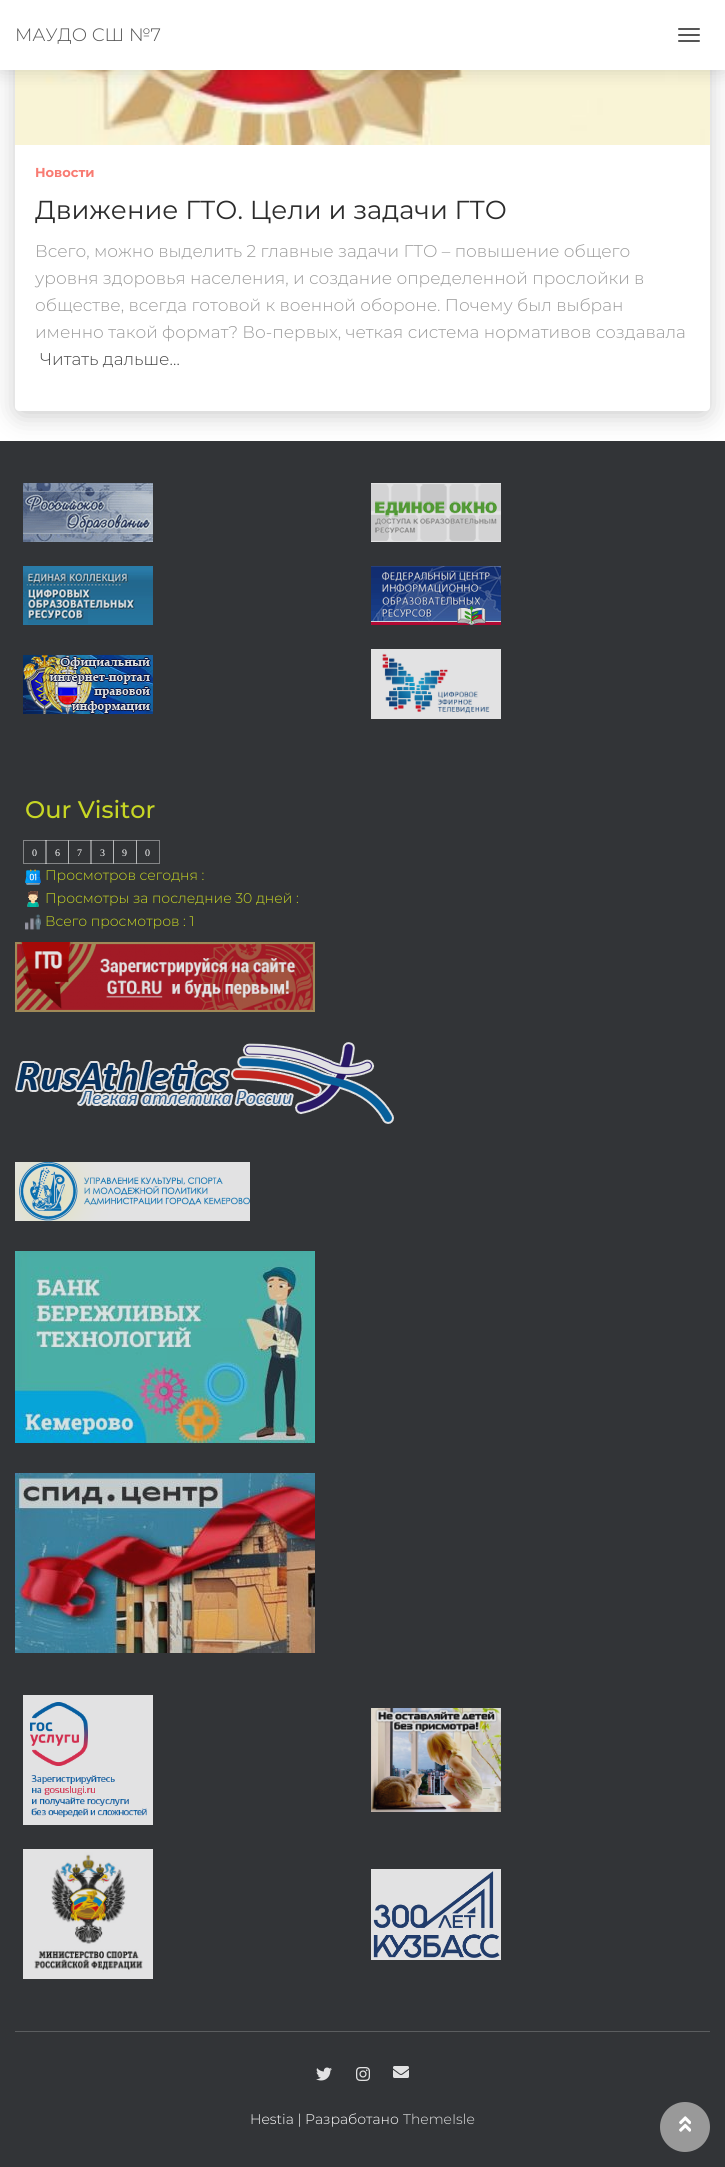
#include <cairo.h>
#include <math.h>
#include <stddef.h>


static void round_rect(cairo_t *cr, double x, double y, double w, double h, double r) {
    cairo_new_sub_path(cr);
    cairo_arc(cr, x + w - r, y + h - r, r, 0, M_PI / 2);
    cairo_arc(cr, x + r, y + h - r, r, M_PI / 2, M_PI);
    cairo_arc(cr, x + r, y + r, r, M_PI, 1.5 * M_PI);
    cairo_arc(cr, x + w - r, y + r, r, 1.5 * M_PI, 2 * M_PI);
    cairo_close_path(cr);
}

static void shadow(cairo_t *cr, double x, double y, double w, double h, double r, double blur, double alpha) {
    cairo_push_group_with_content(cr, CAIRO_CONTENT_ALPHA);
    cairo_set_operator(cr, CAIRO_OPERATOR_SOURCE);
    for (int i = 15; i >= -15 && fmin(w, h) + blur * i / 3 > 0; i -= 2) {
        double e = blur * i / 6;
        cairo_set_source_rgba(cr, 0, 0, 0, alpha * erfc((i - 1) / 8.5) / 2);
        round_rect(cr, x - e, y - e, w + 2 * e, h + 2 * e, fmax(0, fmin(r + e + blur * .6, fmin(w, h) / 2 + e)));
        cairo_fill(cr);
    }
    cairo_pattern_t *soft = cairo_pop_group(cr);
    cairo_mask(cr, soft);
    cairo_pattern_destroy(soft);
}

static void picture(cairo_t *cr, const char *path, double x, double y, double w, double h) {
    cairo_surface_t *image = cairo_image_surface_create_from_png(path);
    cairo_save(cr);
    cairo_set_source_surface(cr, image, x, y);
    cairo_rectangle(cr, x, y, w, h);
    cairo_fill(cr);
    cairo_restore(cr);
    cairo_surface_destroy(image);
}

int main(void) {
    cairo_surface_t *surface = cairo_image_surface_create(CAIRO_FORMAT_RGB24, 725, 2167);
    cairo_t *cr = cairo_create(surface);
    cairo_font_options_t *options = cairo_font_options_create();
    cairo_font_options_set_hint_metrics(options, CAIRO_HINT_METRICS_OFF);
    cairo_font_options_set_hint_style(options, CAIRO_HINT_STYLE_NONE);
    cairo_set_font_options(cr, options);
    cairo_set_miter_limit(cr, 4);
    cairo_set_source_rgb(cr, 1, 1, 1);
    cairo_paint(cr);
    cairo_set_source_rgb(cr, 0.196, 0.204, 0.216);
    cairo_rectangle(cr, 0, 441, 725, 1726);
    cairo_fill(cr);
    cairo_set_source_rgb(cr, 0, 0, 0);
    shadow(cr, 15, -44, 695, 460, 6, 12.5, 0.2);
    picture(cr, "img1.png", 15, 70, 695, 75);
    shadow(cr, 0, 0, 725, 70, 0, 10, 0.15);
    cairo_set_source_rgb(cr, 1, 1, 1);
    cairo_rectangle(cr, 0, 0, 725, 70);
    cairo_fill(cr);
    cairo_select_font_face(cr, "Montserrat Light", CAIRO_FONT_SLANT_NORMAL, CAIRO_FONT_WEIGHT_NORMAL);
    cairo_set_font_size(cr, 18);
    cairo_set_source_rgb(cr, 0.333, 0.333, 0.333);
    cairo_move_to(cr, 15, 41);
    cairo_show_text(cr, "МАУДО СШ №7");
    round_rect(cr, 678, 28, 22, 2, 1);
    cairo_fill(cr);
    round_rect(cr, 678, 34, 22, 2, 1);
    cairo_fill(cr);
    round_rect(cr, 678, 40, 22, 2, 1);
    cairo_fill(cr);
    cairo_set_source_rgb(cr, 1, 1, 1);
    cairo_new_path(cr);
    cairo_move_to(cr, 15, 145);
    cairo_line_to(cr, 710, 145);
    cairo_line_to(cr, 710, 407);
    cairo_curve_to(cr, 710, 409, 708, 411, 706, 411);
    cairo_line_to(cr, 19, 411);
    cairo_curve_to(cr, 17, 411, 15, 409, 15, 407);
    cairo_close_path(cr);
    cairo_fill(cr);
    cairo_select_font_face(cr, "Montserrat", CAIRO_FONT_SLANT_NORMAL, CAIRO_FONT_WEIGHT_BOLD);
    cairo_set_font_size(cr, 13);
    cairo_set_source_rgb(cr, 0.969, 0.482, 0.447);
    cairo_move_to(cr, 35, 177);
    cairo_show_text(cr, "Новости");
    cairo_select_font_face(cr, "Montserrat", CAIRO_FONT_SLANT_NORMAL, CAIRO_FONT_WEIGHT_NORMAL);
    cairo_set_font_size(cr, 26);
    cairo_set_source_rgb(cr, 0.173, 0.173, 0.173);
    cairo_move_to(cr, 35, 219);
    cairo_show_text(cr, "Движение ГТО. Цели и задачи ГТО");
    cairo_select_font_face(cr, "Montserrat Light", CAIRO_FONT_SLANT_NORMAL, CAIRO_FONT_WEIGHT_NORMAL);
    cairo_set_font_size(cr, 17);
    cairo_set_source_rgb(cr, 0.604, 0.604, 0.604);
    cairo_move_to(cr, 35, 257);
    cairo_show_text(cr, "Всего, можно выделить 2 главные задачи ГТО – повышение общего");
    cairo_move_to(cr, 35, 284);
    cairo_show_text(cr, "уровня здоровья населения, и создание определенной прослойки в");
    cairo_move_to(cr, 35, 311);
    cairo_show_text(cr, "обществе, всегда готовой к военной обороне. Почему был выбран");
    cairo_move_to(cr, 35, 338);
    cairo_show_text(cr, "именно такой формат? Во-первых, четкая система нормативов создавала");
    cairo_set_source_rgb(cr, 0.267, 0.267, 0.267);
    cairo_move_to(cr, 40, 365);
    cairo_show_text(cr, "Читать дальше…");
    picture(cr, "img2.png", 23, 483, 130, 59);
    picture(cr, "img3.png", 371, 483, 130, 59);
    picture(cr, "img4.png", 23, 566, 130, 59);
    picture(cr, "img5.png", 371, 566, 130, 59);
    picture(cr, "img6.png", 23, 655, 130, 59);
    picture(cr, "img7.png", 371, 649, 130, 70);
    cairo_select_font_face(cr, "Montserrat Medium", CAIRO_FONT_SLANT_NORMAL, CAIRO_FONT_WEIGHT_NORMAL);
    cairo_set_font_size(cr, 24);
    cairo_set_source_rgb(cr, 0.78, 0.839, 0.141);
    cairo_move_to(cr, 25, 818);
    cairo_show_text(cr, "Our Visitor");
    cairo_rectangle(cr, 23.5, 840.5, 23, 23);
    cairo_set_source_rgb(cr, 0.518, 0.522, 0.529);
    cairo_set_line_width(cr, 1);
    cairo_stroke(cr);
    cairo_select_font_face(cr, "Liberation Serif", CAIRO_FONT_SLANT_NORMAL, CAIRO_FONT_WEIGHT_NORMAL);
    cairo_set_font_size(cr, 10);
    cairo_set_source_rgb(cr, 1, 1, 1);
    cairo_move_to(cr, 32, 856);
    cairo_show_text(cr, "0");
    cairo_rectangle(cr, 45.5, 840.5, 23, 23);
    cairo_set_source_rgba(cr, 1, 1, 1, 0.4);
    cairo_stroke(cr);
    cairo_set_source_rgb(cr, 1, 1, 1);
    cairo_move_to(cr, 55, 856);
    cairo_show_text(cr, "6");
    cairo_rectangle(cr, 68.5, 840.5, 23, 23);
    cairo_set_source_rgba(cr, 1, 1, 1, 0.4);
    cairo_stroke(cr);
    cairo_set_source_rgb(cr, 1, 1, 1);
    cairo_move_to(cr, 77, 856);
    cairo_show_text(cr, "7");
    cairo_rectangle(cr, 90.5, 840.5, 23, 23);
    cairo_set_source_rgba(cr, 1, 1, 1, 0.4);
    cairo_stroke(cr);
    cairo_set_source_rgb(cr, 1, 1, 1);
    cairo_move_to(cr, 100, 856);
    cairo_show_text(cr, "3");
    cairo_rectangle(cr, 113.5, 840.5, 23, 23);
    cairo_set_source_rgba(cr, 1, 1, 1, 0.4);
    cairo_stroke(cr);
    cairo_set_source_rgb(cr, 1, 1, 1);
    cairo_move_to(cr, 122, 856);
    cairo_show_text(cr, "9");
    cairo_rectangle(cr, 136.5, 840.5, 23, 23);
    cairo_set_source_rgba(cr, 1, 1, 1, 0.4);
    cairo_stroke(cr);
    cairo_set_source_rgb(cr, 1, 1, 1);
    cairo_move_to(cr, 145, 856);
    cairo_show_text(cr, "0");
    picture(cr, "img8.png", 25, 869, 16, 16);
    cairo_select_font_face(cr, "Montserrat Light", CAIRO_FONT_SLANT_NORMAL, CAIRO_FONT_WEIGHT_NORMAL);
    cairo_set_font_size(cr, 14);
    cairo_set_source_rgb(cr, 0.78, 0.839, 0.141);
    cairo_move_to(cr, 45, 880);
    cairo_show_text(cr, "Просмотров сегодня :");
    picture(cr, "img9.png", 27, 891, 12, 16);
    cairo_move_to(cr, 45, 903);
    cairo_show_text(cr, "Просмотры за последние 30 дней :");
    picture(cr, "img10.png", 25, 914, 16, 16);
    cairo_move_to(cr, 45, 926);
    cairo_show_text(cr, "Всего просмотров : 1");
    picture(cr, "img11.png", 15, 942, 300, 70);
    picture(cr, "img12.png", 15, 1042, 379, 82);
    picture(cr, "img13.png", 15, 1162, 235, 59);
    picture(cr, "img14.png", 15, 1251, 300, 192);
    picture(cr, "img15.png", 15, 1473, 300, 180);
    picture(cr, "img16.png", 23, 1695, 130, 130);
    picture(cr, "img17.png", 371, 1708, 130, 104);
    picture(cr, "img18.png", 23, 1849, 130, 130);
    picture(cr, "img19.png", 371, 1869, 130, 91);
    cairo_set_source_rgb(cr, 0.357, 0.365, 0.373);
    cairo_rectangle(cr, 15, 2031, 695, 1);
    cairo_fill(cr);
    picture(cr, "img20.png", 316, 2067, 16, 14);
    picture(cr, "img21.png", 356, 2067, 14, 14);
    picture(cr, "img22.png", 393, 2066, 16, 12);
    cairo_set_source_rgb(cr, 1, 1, 1);
    cairo_move_to(cr, 250, 2124);
    cairo_show_text(cr, "Hestia | Разработано");
    cairo_set_source_rgb(cr, 0.886, 0.89, 0.89);
    cairo_move_to(cr, 403, 2124);
    cairo_show_text(cr, "ThemeIsle");
    cairo_set_source_rgb(cr, 0.6, 0.6, 0.6);
    cairo_new_path(cr);
    cairo_arc(cr, 685, 2127, 25, 0, 2 * M_PI);
    cairo_fill(cr);
    picture(cr, "img23.png", 679, 2116, 12, 16);
    cairo_surface_write_to_png(surface, "page.png");
    cairo_font_options_destroy(options);
    cairo_destroy(cr);
    cairo_surface_destroy(surface);
    return 0;
}
